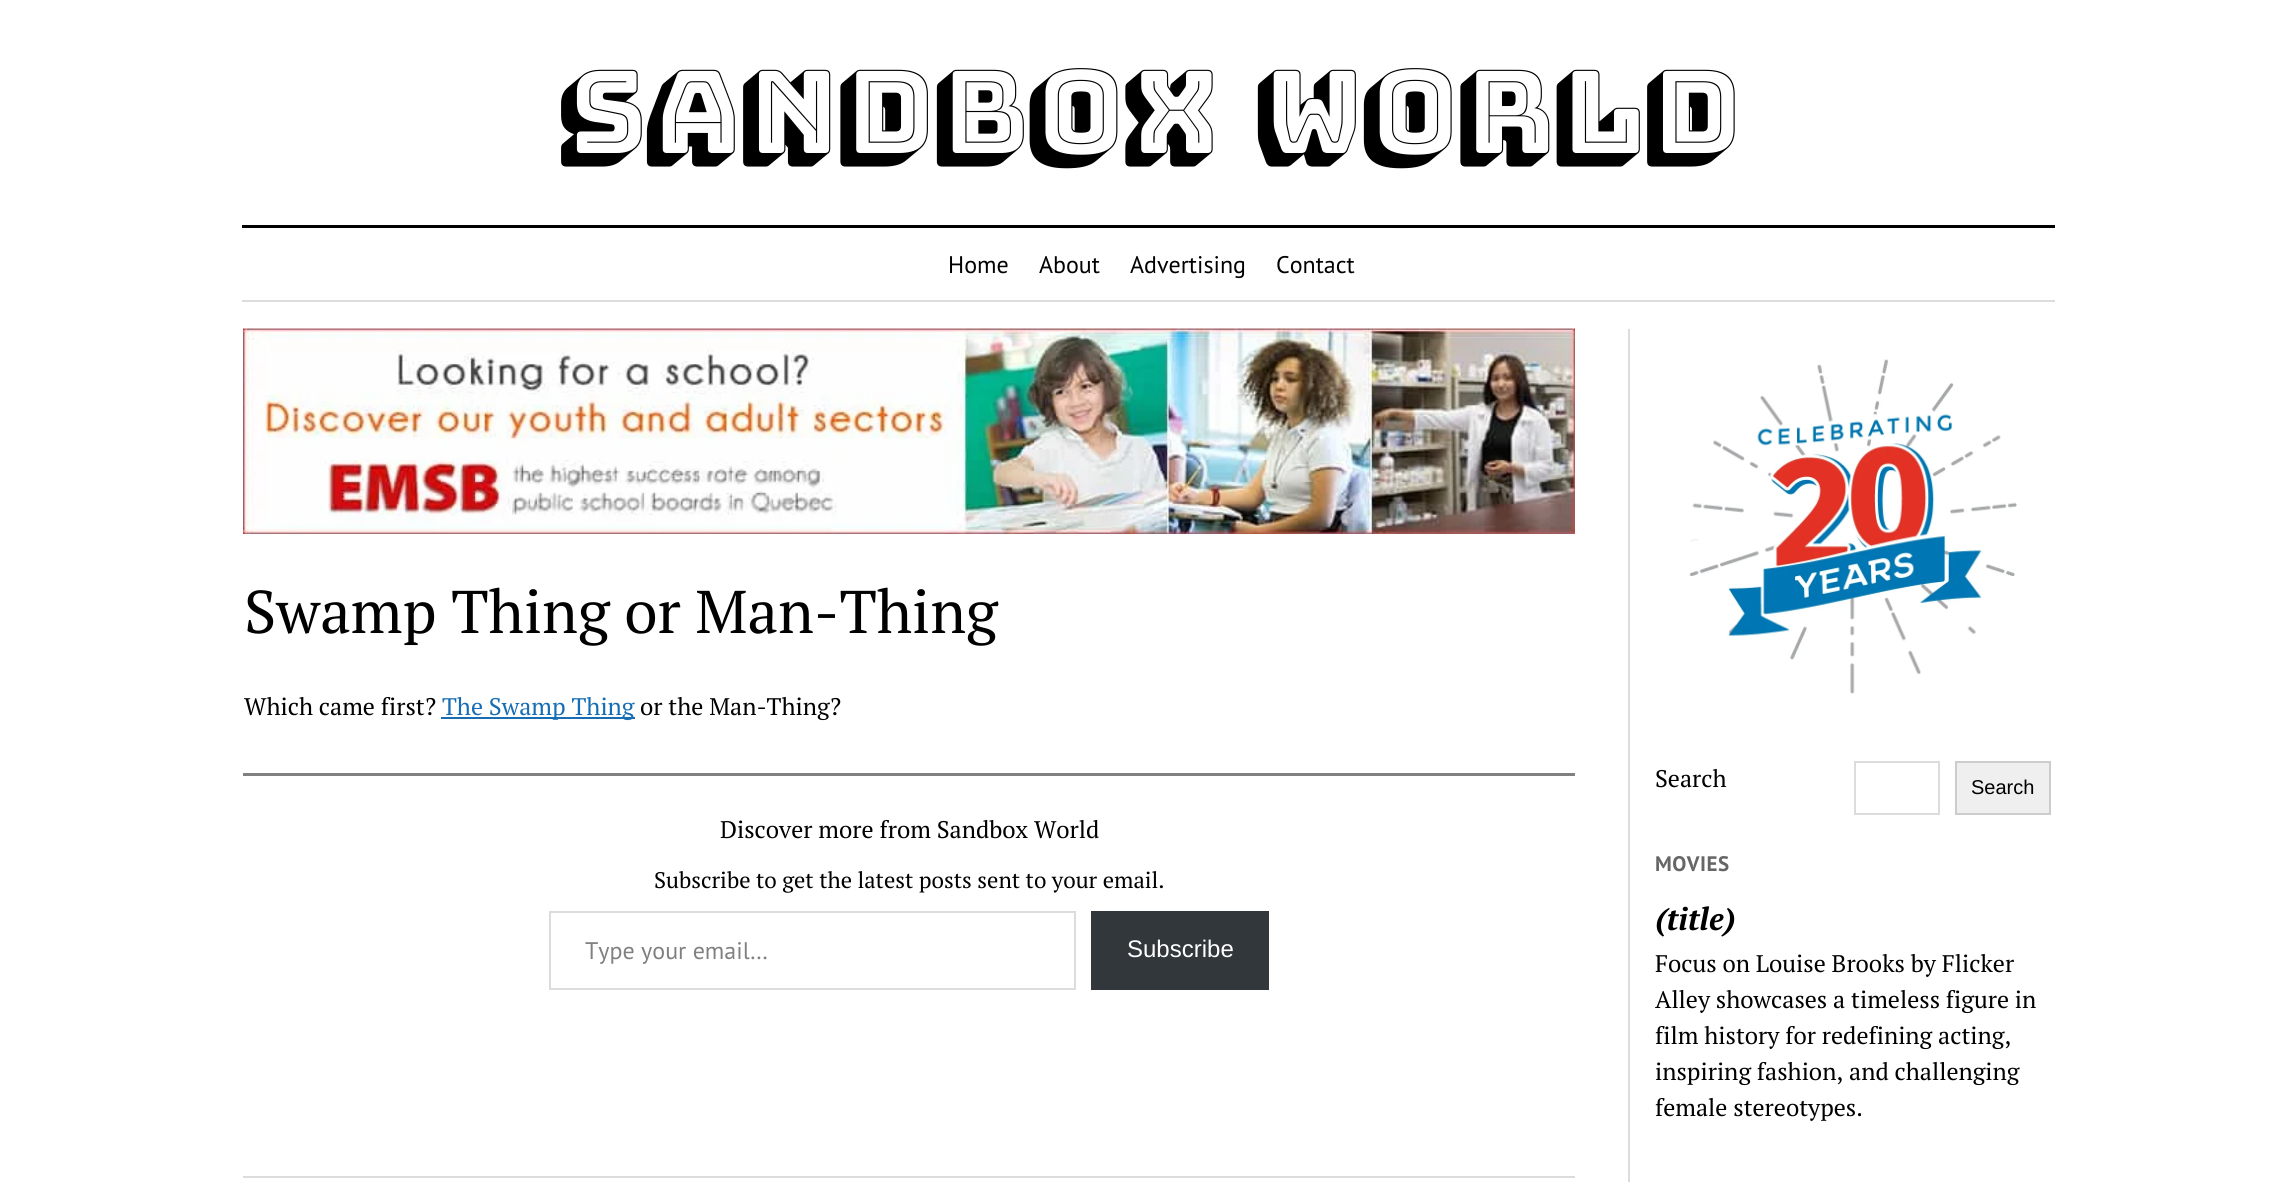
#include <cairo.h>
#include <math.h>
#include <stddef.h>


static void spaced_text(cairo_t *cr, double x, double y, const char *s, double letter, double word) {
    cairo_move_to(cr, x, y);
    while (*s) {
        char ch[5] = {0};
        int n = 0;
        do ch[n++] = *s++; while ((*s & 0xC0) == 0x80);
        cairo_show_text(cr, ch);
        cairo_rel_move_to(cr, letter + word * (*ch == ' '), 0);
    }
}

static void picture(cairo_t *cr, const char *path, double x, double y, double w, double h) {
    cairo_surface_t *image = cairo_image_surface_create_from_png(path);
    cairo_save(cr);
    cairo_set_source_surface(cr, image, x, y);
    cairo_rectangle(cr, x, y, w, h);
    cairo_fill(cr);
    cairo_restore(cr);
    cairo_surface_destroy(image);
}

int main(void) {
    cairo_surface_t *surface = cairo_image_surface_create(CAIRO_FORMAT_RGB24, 2296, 1182);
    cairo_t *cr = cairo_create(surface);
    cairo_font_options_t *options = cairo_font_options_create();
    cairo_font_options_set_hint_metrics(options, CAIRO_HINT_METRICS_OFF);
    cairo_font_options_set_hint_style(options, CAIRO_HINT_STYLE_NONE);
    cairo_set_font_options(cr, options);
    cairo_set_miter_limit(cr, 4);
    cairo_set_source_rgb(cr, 1, 1, 1);
    cairo_paint(cr);
    cairo_select_font_face(cr, "Bungee Shade", CAIRO_FONT_SLANT_NORMAL, CAIRO_FONT_WEIGHT_NORMAL);
    cairo_set_font_size(cr, 114);
    cairo_set_source_rgb(cr, 0, 0, 0);
    cairo_move_to(cr, 558, 153);
    cairo_show_text(cr, "Sandbox World");
    cairo_rectangle(cr, 242, 225, 1813, 3);
    cairo_fill(cr);
    cairo_set_source_rgb(cr, 0.863, 0.863, 0.863);
    cairo_rectangle(cr, 242, 300, 1813, 2);
    cairo_fill(cr);
    cairo_select_font_face(cr, "PT Sans", CAIRO_FONT_SLANT_NORMAL, CAIRO_FONT_WEIGHT_NORMAL);
    cairo_set_font_size(cr, 24);
    cairo_set_source_rgb(cr, 0, 0, 0);
    cairo_move_to(cr, 948, 273);
    cairo_show_text(cr, "Home");
    cairo_move_to(cr, 1039, 273);
    cairo_show_text(cr, "About");
    cairo_move_to(cr, 1130, 273);
    cairo_show_text(cr, "Advertising");
    cairo_move_to(cr, 1276, 273);
    cairo_show_text(cr, "Contact");
    cairo_set_source_rgb(cr, 0.863, 0.863, 0.863);
    cairo_rectangle(cr, 1628, 329, 2, 853);
    cairo_fill(cr);
    picture(cr, "img1.png", 243, 328, 1332, 206);
    cairo_select_font_face(cr, "PT Serif", CAIRO_FONT_SLANT_NORMAL, CAIRO_FONT_WEIGHT_NORMAL);
    cairo_set_font_size(cr, 60.25);
    cairo_set_source_rgb(cr, 0, 0, 0);
    cairo_move_to(cr, 244, 633);
    cairo_show_text(cr, "Swamp Thing or Man-Thing");
    cairo_set_font_size(cr, 24);
    cairo_move_to(cr, 244, 715);
    cairo_show_text(cr, "Which came first?");
    cairo_set_source_rgb(cr, 0.09, 0.427, 0.702);
    cairo_rectangle(cr, 441, 717, 194, 2);
    cairo_fill(cr);
    cairo_move_to(cr, 442, 715);
    cairo_show_text(cr, "The Swamp Thing");
    cairo_set_source_rgb(cr, 0, 0, 0);
    cairo_move_to(cr, 640, 715);
    cairo_show_text(cr, "or the Man-Thing?");
    cairo_set_source_rgb(cr, 0.502, 0.502, 0.502);
    cairo_rectangle(cr, 243, 773, 1332, 3);
    cairo_fill(cr);
    cairo_set_source_rgb(cr, 0, 0, 0);
    cairo_move_to(cr, 720, 838);
    cairo_show_text(cr, "Discover more from Sandbox World");
    cairo_set_font_size(cr, 22.5);
    cairo_move_to(cr, 654, 888);
    cairo_show_text(cr, "Subscribe to get the latest posts sent to your email.");
    cairo_rectangle(cr, 550, 912, 525, 77);
    cairo_set_source_rgb(cr, 0.863, 0.863, 0.863);
    cairo_stroke(cr);
    cairo_select_font_face(cr, "PT Sans", CAIRO_FONT_SLANT_NORMAL, CAIRO_FONT_WEIGHT_NORMAL);
    cairo_set_font_size(cr, 24);
    cairo_set_source_rgb(cr, 0.502, 0.502, 0.502);
    cairo_move_to(cr, 585, 959);
    cairo_show_text(cr, "Type your email…");
    cairo_set_source_rgb(cr, 0.196, 0.216, 0.235);
    cairo_rectangle(cr, 1091, 911, 178, 79);
    cairo_fill(cr);
    cairo_select_font_face(cr, "Liberation Sans", CAIRO_FONT_SLANT_NORMAL, CAIRO_FONT_WEIGHT_NORMAL);
    cairo_set_source_rgb(cr, 1, 1, 1);
    cairo_move_to(cr, 1127, 957);
    cairo_show_text(cr, "Subscribe");
    cairo_set_source_rgb(cr, 0.863, 0.863, 0.863);
    cairo_rectangle(cr, 243, 1176, 1332, 2);
    cairo_fill(cr);
    picture(cr, "img2.png", 1689, 359, 328, 335);
    cairo_select_font_face(cr, "PT Serif", CAIRO_FONT_SLANT_NORMAL, CAIRO_FONT_WEIGHT_NORMAL);
    cairo_set_source_rgb(cr, 0, 0, 0);
    cairo_move_to(cr, 1655, 787);
    cairo_show_text(cr, "Search");
    cairo_rectangle(cr, 1855, 762, 84, 52);
    cairo_set_source_rgb(cr, 0.863, 0.863, 0.863);
    cairo_stroke(cr);
    cairo_set_source_rgb(cr, 0.937, 0.937, 0.937);
    cairo_rectangle(cr, 1956, 762, 94, 52);
    cairo_fill_preserve(cr);
    cairo_set_source_rgb(cr, 0.8, 0.8, 0.8);
    cairo_stroke(cr);
    cairo_select_font_face(cr, "Liberation Sans", CAIRO_FONT_SLANT_NORMAL, CAIRO_FONT_WEIGHT_NORMAL);
    cairo_set_font_size(cr, 20);
    cairo_set_source_rgb(cr, 0, 0, 0);
    cairo_move_to(cr, 1971, 794);
    cairo_show_text(cr, "Search");
    cairo_select_font_face(cr, "PT Sans", CAIRO_FONT_SLANT_NORMAL, CAIRO_FONT_WEIGHT_BOLD);
    cairo_set_font_size(cr, 21);
    cairo_set_source_rgb(cr, 0.4, 0.4, 0.4);
    spaced_text(cr, 1655, 871, "MOVIES", 0.5, 0);
    cairo_select_font_face(cr, "PT Serif", CAIRO_FONT_SLANT_ITALIC, CAIRO_FONT_WEIGHT_BOLD);
    cairo_set_font_size(cr, 31.5);
    cairo_set_source_rgb(cr, 0, 0, 0);
    cairo_move_to(cr, 1655, 930);
    cairo_show_text(cr, "(title)");
    cairo_select_font_face(cr, "PT Serif", CAIRO_FONT_SLANT_NORMAL, CAIRO_FONT_WEIGHT_NORMAL);
    cairo_set_font_size(cr, 24);
    cairo_move_to(cr, 1655, 972);
    cairo_show_text(cr, "Focus on Louise Brooks by Flicker");
    cairo_move_to(cr, 1655, 1008);
    cairo_show_text(cr, "Alley showcases a timeless figure in");
    cairo_move_to(cr, 1655, 1044);
    cairo_show_text(cr, "film history for redefining acting,");
    cairo_move_to(cr, 1655, 1080);
    cairo_show_text(cr, "inspiring fashion, and challenging");
    cairo_move_to(cr, 1655, 1116);
    cairo_show_text(cr, "female stereotypes.");
    cairo_surface_write_to_png(surface, "page.png");
    cairo_font_options_destroy(options);
    cairo_destroy(cr);
    cairo_surface_destroy(surface);
    return 0;
}
